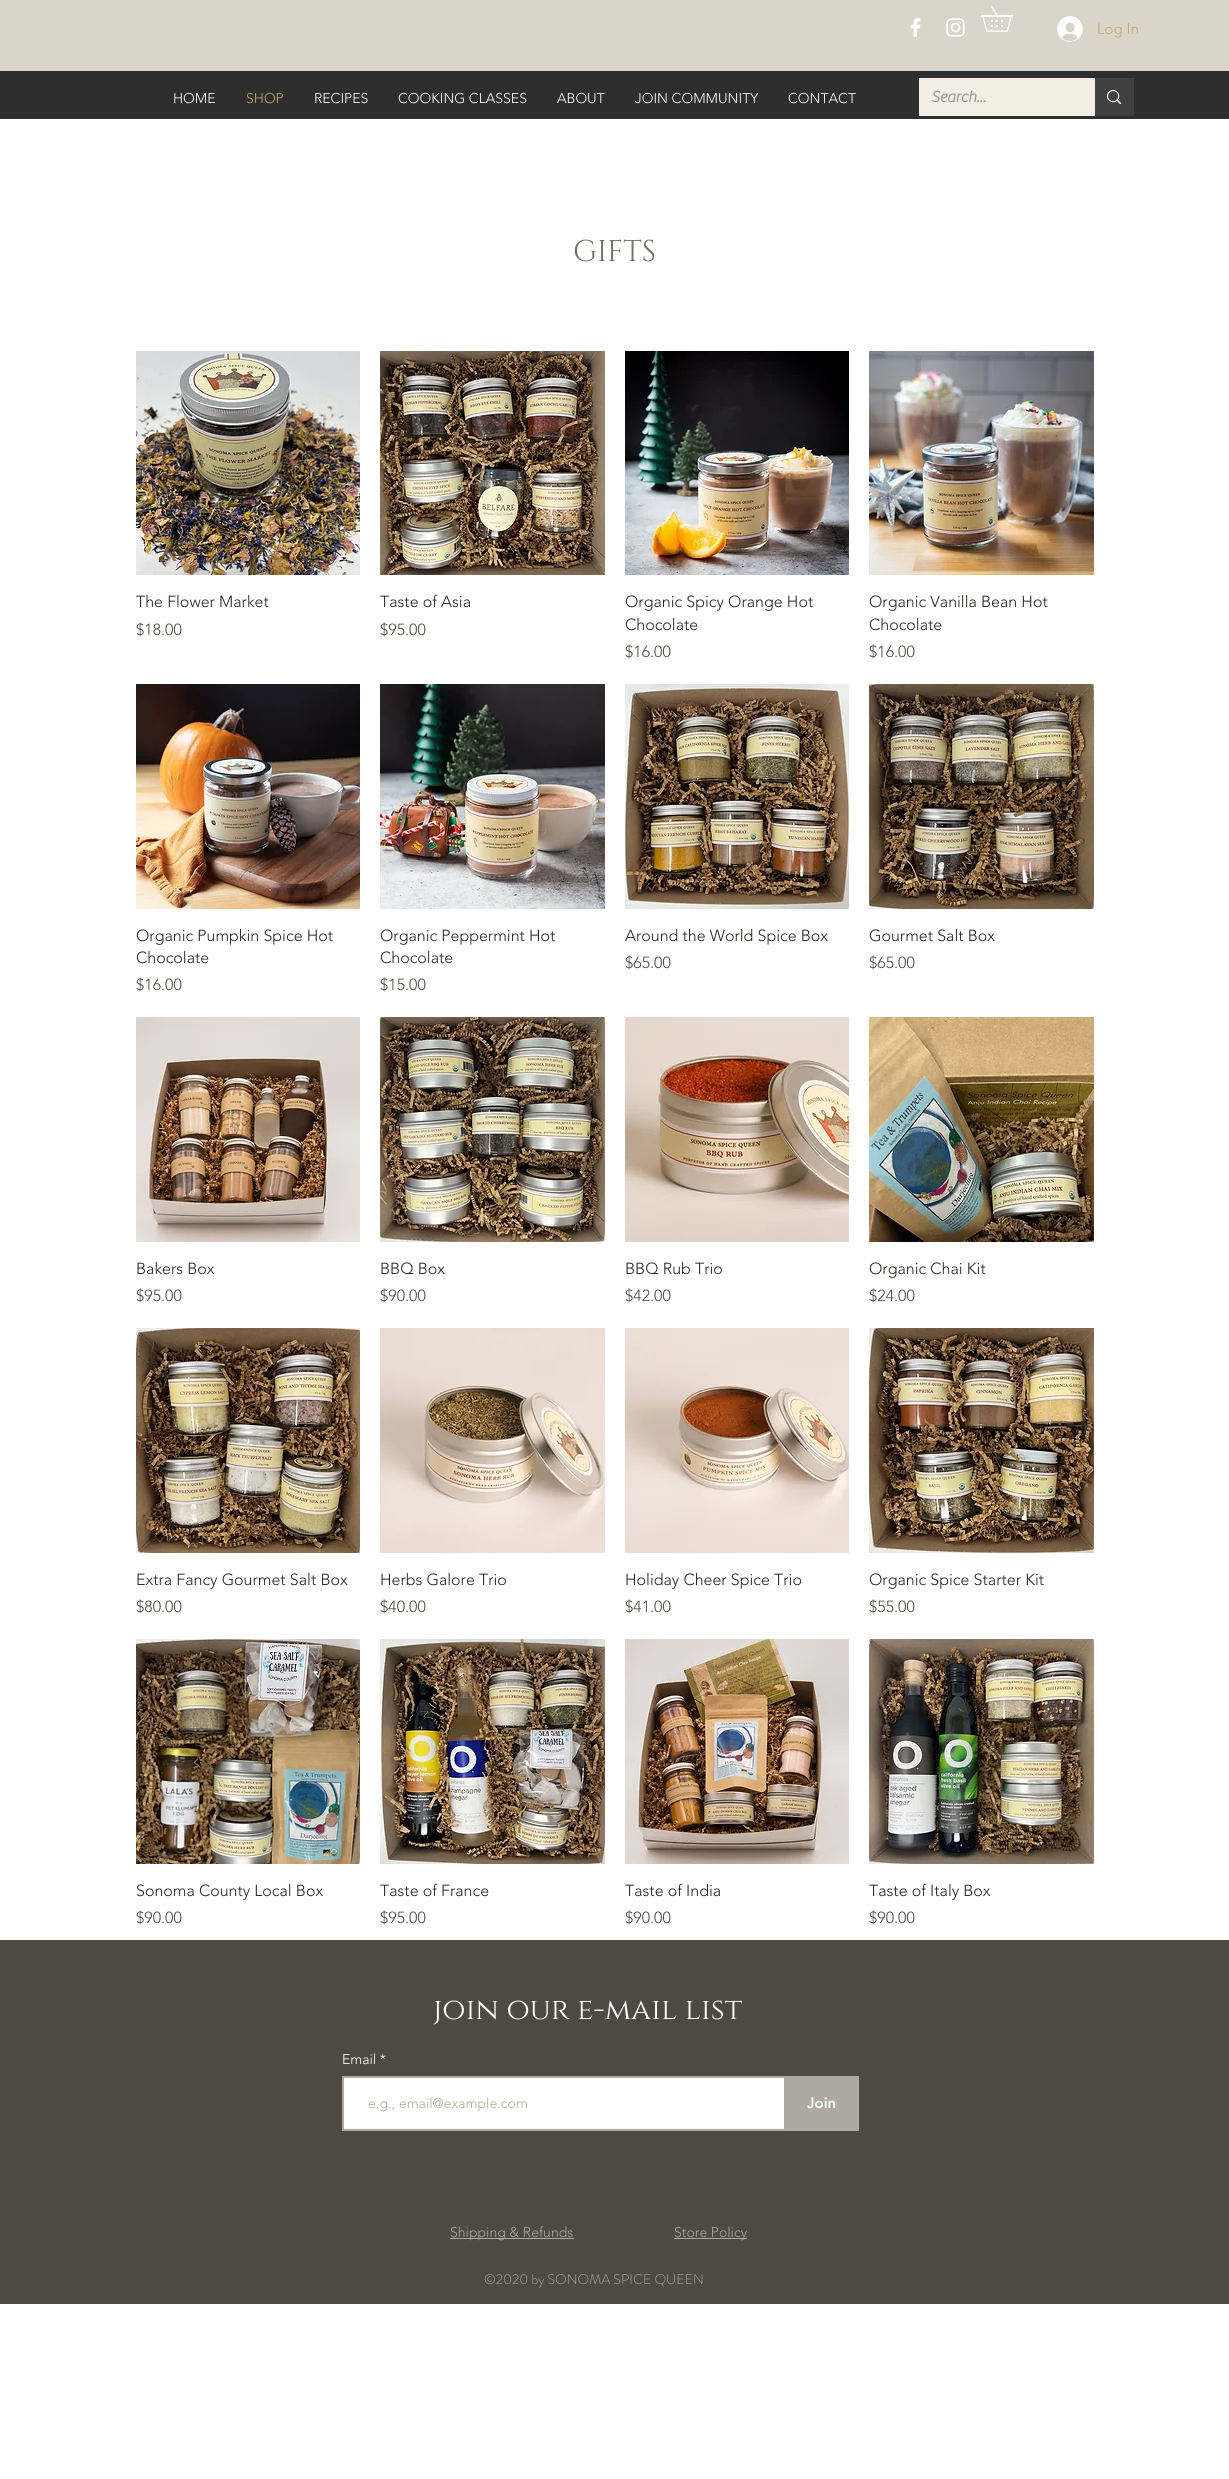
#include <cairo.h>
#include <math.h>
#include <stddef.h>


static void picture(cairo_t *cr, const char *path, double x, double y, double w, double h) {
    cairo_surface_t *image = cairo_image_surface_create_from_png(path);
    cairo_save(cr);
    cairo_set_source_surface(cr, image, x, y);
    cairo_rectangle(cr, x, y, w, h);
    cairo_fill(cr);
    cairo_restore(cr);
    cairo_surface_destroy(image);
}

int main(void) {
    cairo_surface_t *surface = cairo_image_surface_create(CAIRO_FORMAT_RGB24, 1229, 2479);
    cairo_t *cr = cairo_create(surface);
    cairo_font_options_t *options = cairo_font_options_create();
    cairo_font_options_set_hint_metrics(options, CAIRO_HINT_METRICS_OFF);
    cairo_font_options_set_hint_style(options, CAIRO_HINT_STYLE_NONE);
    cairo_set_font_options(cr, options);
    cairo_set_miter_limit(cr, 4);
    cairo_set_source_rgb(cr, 1, 1, 1);
    cairo_paint(cr);
    cairo_set_source_rgb(cr, 0.851, 0.835, 0.792);
    cairo_rectangle(cr, 0, 0, 1229, 71);
    cairo_fill(cr);
    picture(cr, "img1.png", 981, 6, 32, 26);
    cairo_set_source_rgb(cr, 0.184, 0.18, 0.18);
    cairo_rectangle(cr, 0, 71, 1229, 48);
    cairo_fill(cr);
    cairo_select_font_face(cr, "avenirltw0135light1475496 Light", CAIRO_FONT_SLANT_NORMAL, CAIRO_FONT_WEIGHT_NORMAL);
    cairo_set_font_size(cr, 14);
    cairo_set_source_rgb(cr, 1, 1, 1);
    cairo_move_to(cr, 173, 103);
    cairo_show_text(cr, "HOME");
    cairo_set_source_rgb(cr, 0.749, 0.655, 0.376);
    cairo_move_to(cr, 246, 103);
    cairo_show_text(cr, "SHOP");
    cairo_set_source_rgb(cr, 1, 1, 1);
    cairo_move_to(cr, 314, 103);
    cairo_show_text(cr, "RECIPES");
    cairo_move_to(cr, 398, 103);
    cairo_show_text(cr, "COOKING CLASSES");
    cairo_move_to(cr, 557, 103);
    cairo_show_text(cr, "ABOUT");
    cairo_move_to(cr, 635, 103);
    cairo_show_text(cr, "JOIN COMMUNITY");
    cairo_move_to(cr, 788, 103);
    cairo_show_text(cr, "CONTACT");
    picture(cr, "img2.png", 910, 18, 11, 19);
    picture(cr, "img3.png", 946, 18, 19, 19);
    picture(cr, "img4.png", 1057, 16, 26, 26);
    cairo_set_font_size(cr, 15);
    cairo_set_source_rgb(cr, 0.749, 0.655, 0.376);
    cairo_move_to(cr, 1097, 34);
    cairo_show_text(cr, "Log In");
    cairo_set_source_rgb(cr, 0.949, 0.933, 0.894);
    cairo_rectangle(cr, 919, 78, 176, 38);
    cairo_fill(cr);
    cairo_select_font_face(cr, "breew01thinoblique", CAIRO_FONT_SLANT_NORMAL, CAIRO_FONT_WEIGHT_BOLD);
    cairo_set_font_size(cr, 16);
    cairo_set_source_rgb(cr, 0.6, 0.6, 0.6);
    cairo_move_to(cr, 931, 102);
    cairo_show_text(cr, "Search...");
    cairo_set_source_rgb(cr, 0.255, 0.255, 0.255);
    cairo_rectangle(cr, 1095, 78, 39, 38);
    cairo_fill(cr);
    picture(cr, "img5.png", 1107, 90, 15, 14);
    cairo_select_font_face(cr, "Cinzel", CAIRO_FONT_SLANT_NORMAL, CAIRO_FONT_WEIGHT_NORMAL);
    cairo_set_font_size(cr, 30);
    cairo_set_source_rgb(cr, 0.459, 0.435, 0.388);
    cairo_move_to(cr, 573, 261);
    cairo_show_text(cr, "GIFTS");
    picture(cr, "img6.png", 136, 351, 224, 224);
    cairo_select_font_face(cr, "avenirltw0135light1475496 Light", CAIRO_FONT_SLANT_NORMAL, CAIRO_FONT_WEIGHT_NORMAL);
    cairo_set_font_size(cr, 16);
    cairo_set_source_rgb(cr, 0.153, 0.145, 0.129);
    cairo_move_to(cr, 136, 607);
    cairo_show_text(cr, "The Flower Market");
    cairo_set_source_rgb(cr, 0.306, 0.29, 0.259);
    cairo_move_to(cr, 136, 635);
    cairo_show_text(cr, "$18.00");
    picture(cr, "img7.png", 380, 351, 225, 224);
    cairo_set_source_rgb(cr, 0.153, 0.145, 0.129);
    cairo_move_to(cr, 380, 607);
    cairo_show_text(cr, "Taste of Asia");
    cairo_set_source_rgb(cr, 0.306, 0.29, 0.259);
    cairo_move_to(cr, 380, 635);
    cairo_show_text(cr, "$95.00");
    picture(cr, "img8.png", 625, 351, 224, 224);
    cairo_set_source_rgb(cr, 0.153, 0.145, 0.129);
    cairo_move_to(cr, 625, 607);
    cairo_show_text(cr, "Organic Spicy Orange Hot");
    cairo_move_to(cr, 625, 630);
    cairo_show_text(cr, "Chocolate");
    cairo_set_source_rgb(cr, 0.306, 0.29, 0.259);
    cairo_move_to(cr, 625, 657);
    cairo_show_text(cr, "$16.00");
    picture(cr, "img9.png", 869, 351, 225, 224);
    cairo_set_source_rgb(cr, 0.153, 0.145, 0.129);
    cairo_move_to(cr, 869, 607);
    cairo_show_text(cr, "Organic Vanilla Bean Hot");
    cairo_move_to(cr, 869, 630);
    cairo_show_text(cr, "Chocolate");
    cairo_set_source_rgb(cr, 0.306, 0.29, 0.259);
    cairo_move_to(cr, 869, 657);
    cairo_show_text(cr, "$16.00");
    picture(cr, "img10.png", 136, 684, 224, 225);
    cairo_set_source_rgb(cr, 0.153, 0.145, 0.129);
    cairo_move_to(cr, 136, 941);
    cairo_show_text(cr, "Organic Pumpkin Spice Hot");
    cairo_move_to(cr, 136, 963);
    cairo_show_text(cr, "Chocolate");
    cairo_set_source_rgb(cr, 0.306, 0.29, 0.259);
    cairo_move_to(cr, 136, 990);
    cairo_show_text(cr, "$16.00");
    picture(cr, "img11.png", 380, 684, 225, 225);
    cairo_set_source_rgb(cr, 0.153, 0.145, 0.129);
    cairo_move_to(cr, 380, 941);
    cairo_show_text(cr, "Organic Peppermint Hot");
    cairo_move_to(cr, 380, 963);
    cairo_show_text(cr, "Chocolate");
    cairo_set_source_rgb(cr, 0.306, 0.29, 0.259);
    cairo_move_to(cr, 380, 990);
    cairo_show_text(cr, "$15.00");
    picture(cr, "img12.png", 625, 684, 224, 225);
    cairo_set_source_rgb(cr, 0.153, 0.145, 0.129);
    cairo_move_to(cr, 625, 941);
    cairo_show_text(cr, "Around the World Spice Box");
    cairo_set_source_rgb(cr, 0.306, 0.29, 0.259);
    cairo_move_to(cr, 625, 968);
    cairo_show_text(cr, "$65.00");
    picture(cr, "img13.png", 869, 684, 225, 225);
    cairo_set_source_rgb(cr, 0.153, 0.145, 0.129);
    cairo_move_to(cr, 869, 941);
    cairo_show_text(cr, "Gourmet Salt Box");
    cairo_set_source_rgb(cr, 0.306, 0.29, 0.259);
    cairo_move_to(cr, 869, 968);
    cairo_show_text(cr, "$65.00");
    picture(cr, "img14.png", 136, 1017, 224, 225);
    cairo_set_source_rgb(cr, 0.153, 0.145, 0.129);
    cairo_move_to(cr, 136, 1274);
    cairo_show_text(cr, "Bakers Box");
    cairo_set_source_rgb(cr, 0.306, 0.29, 0.259);
    cairo_move_to(cr, 136, 1301);
    cairo_show_text(cr, "$95.00");
    picture(cr, "img15.png", 380, 1017, 225, 225);
    cairo_set_source_rgb(cr, 0.153, 0.145, 0.129);
    cairo_move_to(cr, 380, 1274);
    cairo_show_text(cr, "BBQ Box");
    cairo_set_source_rgb(cr, 0.306, 0.29, 0.259);
    cairo_move_to(cr, 380, 1301);
    cairo_show_text(cr, "$90.00");
    picture(cr, "img16.png", 625, 1017, 224, 225);
    cairo_set_source_rgb(cr, 0.153, 0.145, 0.129);
    cairo_move_to(cr, 625, 1274);
    cairo_show_text(cr, "BBQ Rub Trio");
    cairo_set_source_rgb(cr, 0.306, 0.29, 0.259);
    cairo_move_to(cr, 625, 1301);
    cairo_show_text(cr, "$42.00");
    picture(cr, "img17.png", 869, 1017, 225, 225);
    cairo_set_source_rgb(cr, 0.153, 0.145, 0.129);
    cairo_move_to(cr, 869, 1274);
    cairo_show_text(cr, "Organic Chai Kit");
    cairo_set_source_rgb(cr, 0.306, 0.29, 0.259);
    cairo_move_to(cr, 869, 1301);
    cairo_show_text(cr, "$24.00");
    picture(cr, "img18.png", 136, 1328, 224, 225);
    cairo_set_source_rgb(cr, 0.153, 0.145, 0.129);
    cairo_move_to(cr, 136, 1585);
    cairo_show_text(cr, "Extra Fancy Gourmet Salt Box");
    cairo_set_source_rgb(cr, 0.306, 0.29, 0.259);
    cairo_move_to(cr, 136, 1612);
    cairo_show_text(cr, "$80.00");
    picture(cr, "img19.png", 380, 1328, 225, 225);
    cairo_set_source_rgb(cr, 0.153, 0.145, 0.129);
    cairo_move_to(cr, 380, 1585);
    cairo_show_text(cr, "Herbs Galore Trio");
    cairo_set_source_rgb(cr, 0.306, 0.29, 0.259);
    cairo_move_to(cr, 380, 1612);
    cairo_show_text(cr, "$40.00");
    picture(cr, "img20.png", 625, 1328, 224, 225);
    cairo_set_source_rgb(cr, 0.153, 0.145, 0.129);
    cairo_move_to(cr, 625, 1585);
    cairo_show_text(cr, "Holiday Cheer Spice Trio");
    cairo_set_source_rgb(cr, 0.306, 0.29, 0.259);
    cairo_move_to(cr, 625, 1612);
    cairo_show_text(cr, "$41.00");
    picture(cr, "img21.png", 869, 1328, 225, 225);
    cairo_set_source_rgb(cr, 0.153, 0.145, 0.129);
    cairo_move_to(cr, 869, 1585);
    cairo_show_text(cr, "Organic Spice Starter Kit");
    cairo_set_source_rgb(cr, 0.306, 0.29, 0.259);
    cairo_move_to(cr, 869, 1612);
    cairo_show_text(cr, "$55.00");
    picture(cr, "img22.png", 136, 1639, 224, 225);
    cairo_set_source_rgb(cr, 0.153, 0.145, 0.129);
    cairo_move_to(cr, 136, 1896);
    cairo_show_text(cr, "Sonoma County Local Box");
    cairo_set_source_rgb(cr, 0.306, 0.29, 0.259);
    cairo_move_to(cr, 136, 1923);
    cairo_show_text(cr, "$90.00");
    picture(cr, "img23.png", 380, 1639, 225, 225);
    cairo_set_source_rgb(cr, 0.153, 0.145, 0.129);
    cairo_move_to(cr, 380, 1896);
    cairo_show_text(cr, "Taste of France");
    cairo_set_source_rgb(cr, 0.306, 0.29, 0.259);
    cairo_move_to(cr, 380, 1923);
    cairo_show_text(cr, "$95.00");
    picture(cr, "img24.png", 625, 1639, 224, 225);
    cairo_set_source_rgb(cr, 0.153, 0.145, 0.129);
    cairo_move_to(cr, 625, 1896);
    cairo_show_text(cr, "Taste of India");
    cairo_set_source_rgb(cr, 0.306, 0.29, 0.259);
    cairo_move_to(cr, 625, 1923);
    cairo_show_text(cr, "$90.00");
    picture(cr, "img25.png", 869, 1639, 225, 225);
    cairo_set_source_rgb(cr, 0.153, 0.145, 0.129);
    cairo_move_to(cr, 869, 1896);
    cairo_show_text(cr, "Taste of Italy Box");
    cairo_set_source_rgb(cr, 0.306, 0.29, 0.259);
    cairo_move_to(cr, 869, 1923);
    cairo_show_text(cr, "$90.00");
    cairo_rectangle(cr, 0, 1940, 1229, 364);
    cairo_fill(cr);
    cairo_select_font_face(cr, "Cinzel", CAIRO_FONT_SLANT_NORMAL, CAIRO_FONT_WEIGHT_NORMAL);
    cairo_set_font_size(cr, 30);
    cairo_set_source_rgb(cr, 1, 1, 1);
    cairo_move_to(cr, 433, 2019);
    cairo_show_text(cr, "join our e-mail list");
    cairo_select_font_face(cr, "avenirltw0135light1475496 Light", CAIRO_FONT_SLANT_NORMAL, CAIRO_FONT_WEIGHT_NORMAL);
    cairo_set_font_size(cr, 14);
    cairo_move_to(cr, 342, 2064);
    cairo_show_text(cr, "Email *");
    cairo_rectangle(cr, 343, 2077, 442, 53);
    cairo_fill_preserve(cr);
    cairo_set_source_rgb(cr, 0.678, 0.663, 0.627);
    cairo_stroke(cr);
    cairo_move_to(cr, 368, 2108);
    cairo_show_text(cr, "e.g., email@example.com");
    cairo_rectangle(cr, 786, 2076, 73, 55);
    cairo_fill(cr);
    cairo_select_font_face(cr, "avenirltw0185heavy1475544 Black", CAIRO_FONT_SLANT_NORMAL, CAIRO_FONT_WEIGHT_NORMAL);
    cairo_set_font_size(cr, 15);
    cairo_set_source_rgb(cr, 1, 1, 1);
    cairo_move_to(cr, 807, 2108);
    cairo_show_text(cr, "Join");
    cairo_set_source_rgb(cr, 0.678, 0.663, 0.627);
    cairo_rectangle(cr, 450, 2238, 124, 1);
    cairo_fill(cr);
    cairo_select_font_face(cr, "avenirltw0135light1475496 Light", CAIRO_FONT_SLANT_NORMAL, CAIRO_FONT_WEIGHT_NORMAL);
    cairo_set_font_size(cr, 14);
    cairo_move_to(cr, 450, 2237);
    cairo_show_text(cr, "Shipping & Refunds");
    cairo_rectangle(cr, 674, 2238, 73, 1);
    cairo_fill(cr);
    cairo_move_to(cr, 674, 2237);
    cairo_show_text(cr, "Store Policy");
    cairo_select_font_face(cr, "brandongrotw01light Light", CAIRO_FONT_SLANT_NORMAL, CAIRO_FONT_WEIGHT_NORMAL);
    cairo_move_to(cr, 484, 2284);
    cairo_show_text(cr, "©2020 by SONOMA SPICE QUEEN");
    cairo_surface_write_to_png(surface, "page.png");
    cairo_font_options_destroy(options);
    cairo_destroy(cr);
    cairo_surface_destroy(surface);
    return 0;
}
